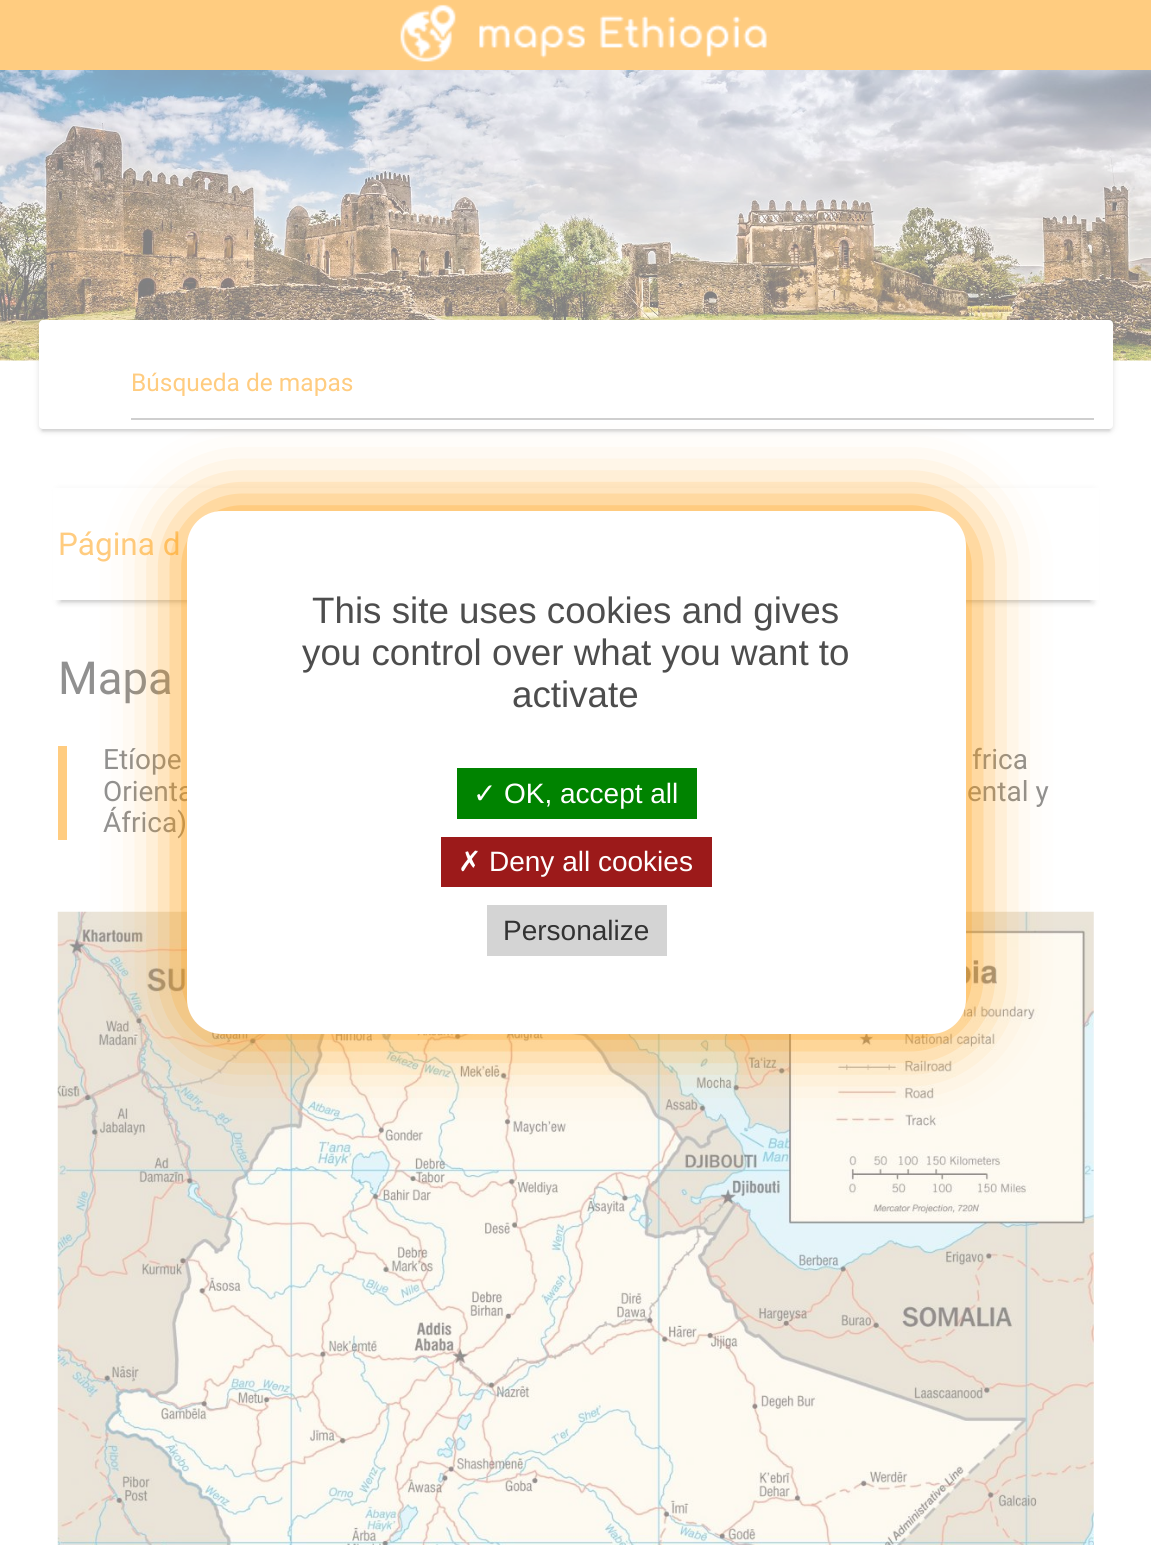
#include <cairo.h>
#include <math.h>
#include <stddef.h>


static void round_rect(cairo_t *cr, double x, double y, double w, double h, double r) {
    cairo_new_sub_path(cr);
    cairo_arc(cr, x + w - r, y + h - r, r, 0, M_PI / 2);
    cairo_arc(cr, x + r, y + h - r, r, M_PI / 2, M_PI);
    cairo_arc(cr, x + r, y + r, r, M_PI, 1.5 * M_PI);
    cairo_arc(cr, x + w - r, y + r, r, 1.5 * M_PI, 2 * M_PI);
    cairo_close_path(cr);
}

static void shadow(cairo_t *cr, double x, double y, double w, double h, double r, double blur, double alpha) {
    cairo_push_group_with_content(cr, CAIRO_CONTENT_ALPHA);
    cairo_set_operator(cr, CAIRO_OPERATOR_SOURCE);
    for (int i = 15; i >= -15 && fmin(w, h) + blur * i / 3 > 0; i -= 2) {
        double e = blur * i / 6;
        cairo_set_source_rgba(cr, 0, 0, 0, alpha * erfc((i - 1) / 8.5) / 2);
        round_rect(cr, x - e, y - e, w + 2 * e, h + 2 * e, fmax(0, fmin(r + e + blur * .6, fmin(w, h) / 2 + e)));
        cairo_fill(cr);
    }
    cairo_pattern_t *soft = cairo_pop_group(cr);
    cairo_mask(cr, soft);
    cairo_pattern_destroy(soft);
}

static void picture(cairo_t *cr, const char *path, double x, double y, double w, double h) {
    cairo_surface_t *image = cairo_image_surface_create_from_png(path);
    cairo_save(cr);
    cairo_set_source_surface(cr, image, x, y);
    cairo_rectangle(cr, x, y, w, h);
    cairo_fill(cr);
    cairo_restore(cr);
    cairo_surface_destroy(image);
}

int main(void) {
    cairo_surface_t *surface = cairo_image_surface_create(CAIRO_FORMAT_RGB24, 1151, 1545);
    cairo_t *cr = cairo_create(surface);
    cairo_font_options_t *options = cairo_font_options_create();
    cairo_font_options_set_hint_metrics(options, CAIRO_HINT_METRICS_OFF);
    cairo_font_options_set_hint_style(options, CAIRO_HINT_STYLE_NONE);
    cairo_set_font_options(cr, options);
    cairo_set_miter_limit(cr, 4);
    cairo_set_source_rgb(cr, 1, 1, 1);
    cairo_paint(cr);
    cairo_set_source_rgb(cr, 1, 0.8, 0.502);
    cairo_rectangle(cr, 0, 0, 1151, 70);
    cairo_fill(cr);
    picture(cr, "img1.png", 400, 4, 367, 58);
    picture(cr, "img2.png", 0, 70, 1151, 291);
    cairo_set_source_rgb(cr, 0.502, 0.502, 0.502);
    shadow(cr, 42, 329, 1068, 102, 0, 1, 0.2);
    shadow(cr, 39, 322, 1074, 109, 4, 4.5, 0.12);
    shadow(cr, 39, 324, 1074, 108, 4, 2, 0.14);
    cairo_set_source_rgb(cr, 1, 1, 1);
    round_rect(cr, 39, 320, 1074, 109, 4);
    cairo_fill(cr);
    cairo_select_font_face(cr, "Roboto", CAIRO_FONT_SLANT_NORMAL, CAIRO_FONT_WEIGHT_NORMAL);
    cairo_set_font_size(cr, 24.5);
    cairo_set_source_rgb(cr, 1, 0.8, 0.502);
    cairo_move_to(cr, 131, 391);
    cairo_show_text(cr, "Búsqueda de mapas");
    cairo_set_source_rgb(cr, 0.812, 0.812, 0.812);
    cairo_rectangle(cr, 131, 418, 963, 2);
    cairo_fill(cr);
    cairo_set_source_rgb(cr, 0.502, 0.502, 0.502);
    shadow(cr, 61, 497, 1029, 105, 0, 1, 0.2);
    shadow(cr, 58, 490, 1036, 112, 0, 4.5, 0.12);
    shadow(cr, 58, 492, 1036, 112, 0, 2, 0.14);
    cairo_set_source_rgb(cr, 1, 1, 1);
    cairo_rectangle(cr, 53, 488, 1046, 112);
    cairo_fill(cr);
    cairo_set_font_size(cr, 31.5);
    cairo_set_source_rgb(cr, 1, 0.8, 0.502);
    cairo_move_to(cr, 58, 555);
    cairo_show_text(cr, "Página d");
    cairo_set_font_size(cr, 45.5);
    cairo_set_source_rgb(cr, 0.565, 0.565, 0.565);
    cairo_move_to(cr, 58, 694);
    cairo_show_text(cr, "Mapa");
    cairo_set_source_rgb(cr, 1, 0.8, 0.502);
    cairo_rectangle(cr, 58, 746, 9, 94);
    cairo_fill(cr);
    cairo_set_font_size(cr, 28);
    cairo_set_source_rgb(cr, 0.565, 0.565, 0.565);
    cairo_move_to(cr, 103, 769);
    cairo_show_text(cr, "Etíope");
    cairo_move_to(cr, 972, 769);
    cairo_show_text(cr, "frica");
    cairo_move_to(cr, 103, 801);
    cairo_show_text(cr, "Orienta");
    cairo_move_to(cr, 967, 801);
    cairo_show_text(cr, "ental y");
    cairo_move_to(cr, 103, 832);
    cairo_show_text(cr, "África)");
    picture(cr, "img3.png", 57, 911, 1037, 634);
    cairo_set_source_rgb(cr, 1, 0.596, 0);
    shadow(cr, 187, 511, 779, 523, 35, 35, 1);
    cairo_set_source_rgb(cr, 1, 1, 1);
    round_rect(cr, 187, 511, 779, 523, 35);
    cairo_fill(cr);
    cairo_select_font_face(cr, "Liberation Sans", CAIRO_FONT_SLANT_NORMAL, CAIRO_FONT_WEIGHT_NORMAL);
    cairo_set_font_size(cr, 36.75);
    cairo_set_source_rgb(cr, 0.302, 0.302, 0.302);
    cairo_move_to(cr, 312, 623);
    cairo_show_text(cr, "This site uses cookies and gives");
    cairo_move_to(cr, 302, 665);
    cairo_show_text(cr, "you control over what you want to");
    cairo_move_to(cr, 512, 707);
    cairo_show_text(cr, "activate");
    cairo_set_source_rgb(cr, 0, 0.514, 0);
    cairo_rectangle(cr, 457, 768, 240, 51);
    cairo_fill(cr);
    cairo_select_font_face(cr, "DejaVu Sans", CAIRO_FONT_SLANT_NORMAL, CAIRO_FONT_WEIGHT_NORMAL);
    cairo_set_font_size(cr, 28);
    cairo_set_source_rgb(cr, 1, 1, 1);
    cairo_move_to(cr, 473, 803);
    cairo_show_text(cr, "✓");
    cairo_select_font_face(cr, "Liberation Sans", CAIRO_FONT_SLANT_NORMAL, CAIRO_FONT_WEIGHT_NORMAL);
    cairo_move_to(cr, 504, 803);
    cairo_show_text(cr, "OK, accept all");
    cairo_set_source_rgb(cr, 0.612, 0.102, 0.102);
    cairo_rectangle(cr, 441, 837, 271, 50);
    cairo_fill(cr);
    cairo_select_font_face(cr, "DejaVu Sans", CAIRO_FONT_SLANT_NORMAL, CAIRO_FONT_WEIGHT_NORMAL);
    cairo_set_source_rgb(cr, 1, 1, 1);
    cairo_move_to(cr, 458, 871);
    cairo_show_text(cr, "✗");
    cairo_select_font_face(cr, "Liberation Sans", CAIRO_FONT_SLANT_NORMAL, CAIRO_FONT_WEIGHT_NORMAL);
    cairo_move_to(cr, 489, 871);
    cairo_show_text(cr, "Deny all cookies");
    cairo_set_source_rgb(cr, 0.831, 0.831, 0.831);
    cairo_rectangle(cr, 487, 905, 180, 51);
    cairo_fill(cr);
    cairo_set_source_rgb(cr, 0.2, 0.2, 0.2);
    cairo_move_to(cr, 503, 940);
    cairo_show_text(cr, "Personalize");
    cairo_surface_write_to_png(surface, "page.png");
    cairo_font_options_destroy(options);
    cairo_destroy(cr);
    cairo_surface_destroy(surface);
    return 0;
}
